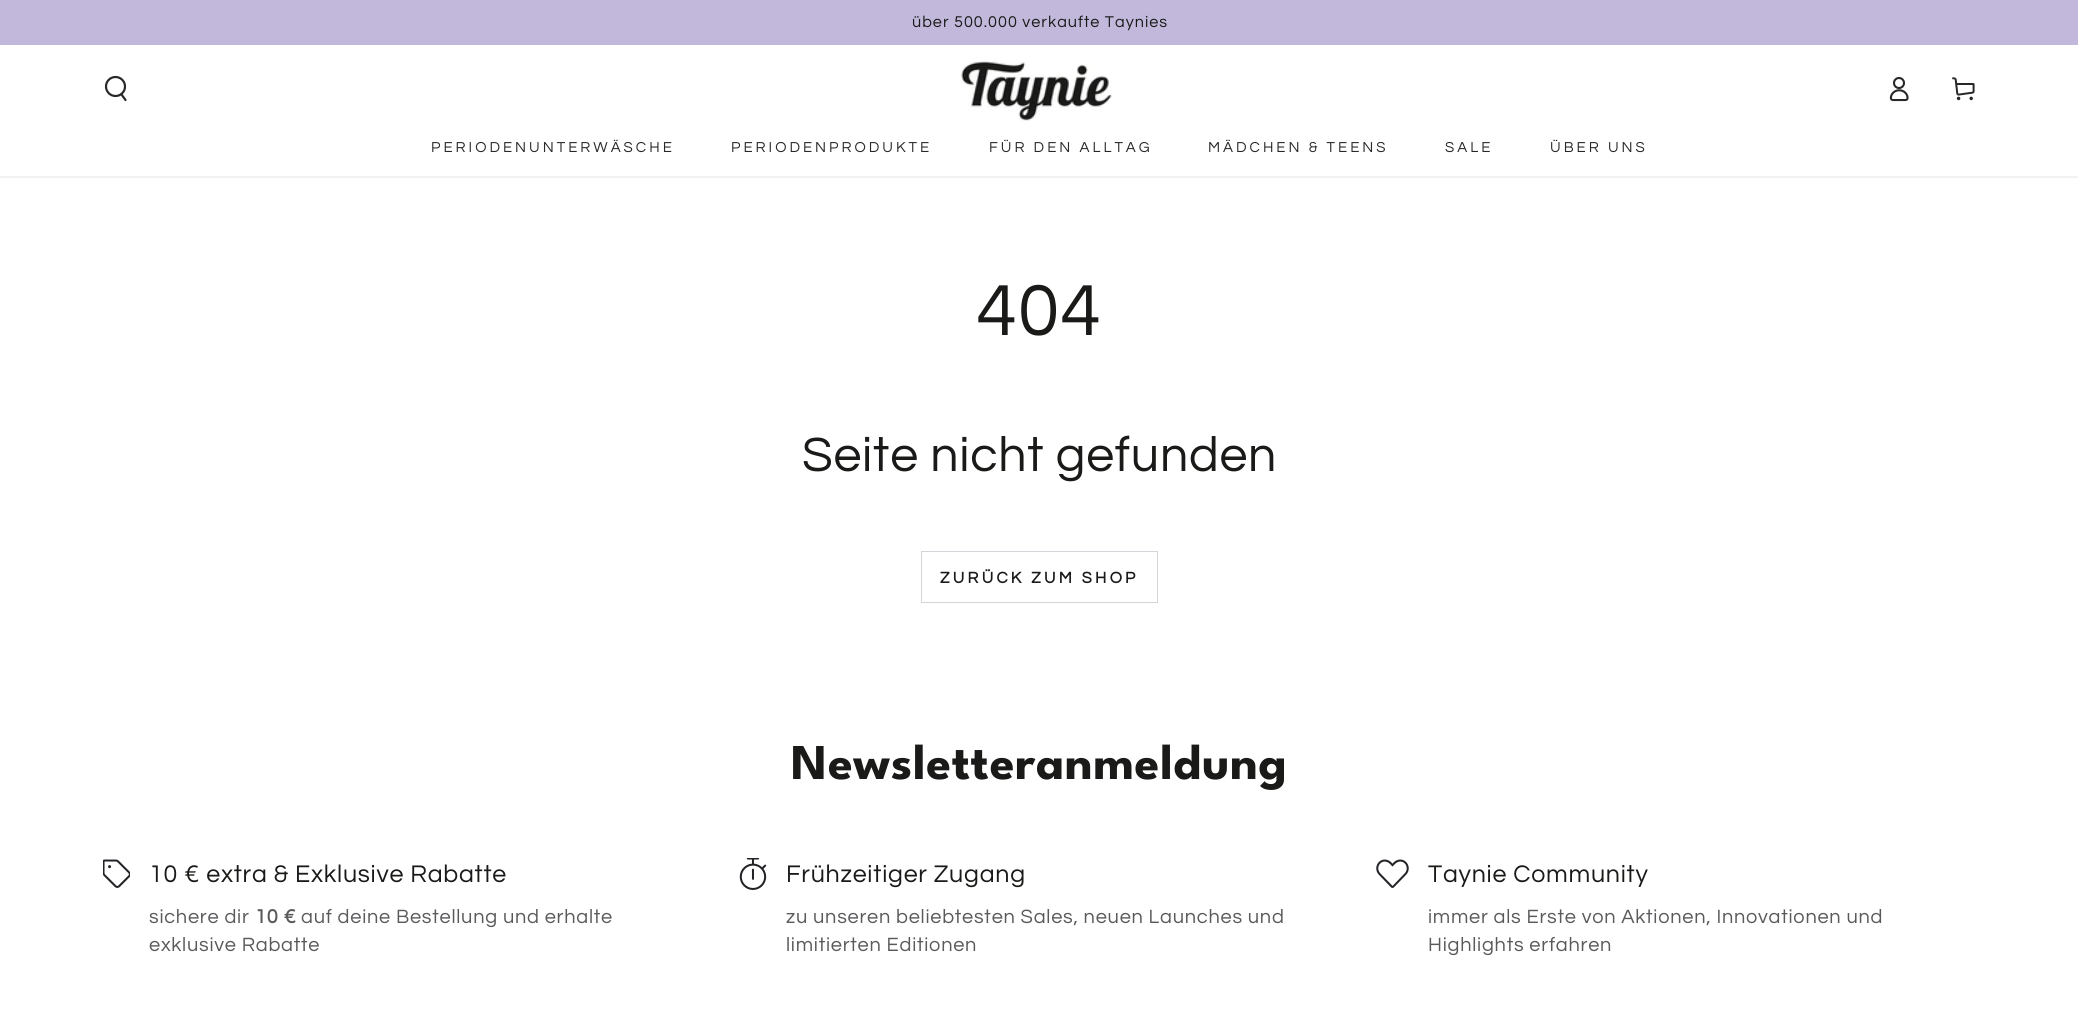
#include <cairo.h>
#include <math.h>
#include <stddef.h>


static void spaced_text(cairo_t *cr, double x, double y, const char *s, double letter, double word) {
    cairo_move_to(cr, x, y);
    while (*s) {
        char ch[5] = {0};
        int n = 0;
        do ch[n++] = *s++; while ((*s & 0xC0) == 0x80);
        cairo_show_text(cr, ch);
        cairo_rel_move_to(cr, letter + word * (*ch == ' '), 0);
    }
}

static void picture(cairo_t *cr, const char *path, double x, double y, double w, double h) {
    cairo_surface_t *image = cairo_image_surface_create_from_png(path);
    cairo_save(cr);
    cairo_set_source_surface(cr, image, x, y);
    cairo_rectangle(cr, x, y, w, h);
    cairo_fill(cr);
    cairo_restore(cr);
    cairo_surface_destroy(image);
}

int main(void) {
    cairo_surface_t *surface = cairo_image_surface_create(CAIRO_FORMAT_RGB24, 2078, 1024);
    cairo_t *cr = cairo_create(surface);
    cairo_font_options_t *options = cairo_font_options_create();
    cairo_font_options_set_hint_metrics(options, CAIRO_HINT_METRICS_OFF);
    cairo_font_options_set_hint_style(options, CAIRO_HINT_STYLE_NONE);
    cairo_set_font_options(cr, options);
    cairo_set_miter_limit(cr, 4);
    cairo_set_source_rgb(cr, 1, 1, 1);
    cairo_paint(cr);
    cairo_set_source_rgb(cr, 0.757, 0.722, 0.863);
    cairo_rectangle(cr, 0, 0, 2078, 45);
    cairo_fill(cr);
    cairo_select_font_face(cr, "Questrial", CAIRO_FONT_SLANT_NORMAL, CAIRO_FONT_WEIGHT_NORMAL);
    cairo_set_font_size(cr, 16.25);
    cairo_set_source_rgb(cr, 0.102, 0.106, 0.094);
    spaced_text(cr, 912, 27, "über 500.000 verkaufte Taynies", 1, 0);
    cairo_set_source_rgb(cr, 0.949, 0.949, 0.957);
    cairo_new_path(cr);
    cairo_move_to(cr, 0, 176);
    cairo_line_to(cr, 0, 178);
    cairo_line_to(cr, 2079, 178);
    cairo_line_to(cr, 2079, 46);
    cairo_line_to(cr, 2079, 176);
    cairo_close_path(cr);
    cairo_fill(cr);
    cairo_arc(cr, 115.5, 86.5, 9.5, 0, 2 * M_PI);
    cairo_set_source_rgb(cr, 0.157, 0.157, 0.157);
    cairo_set_line_width(cr, 2.2);
    cairo_stroke(cr);
    cairo_new_path(cr);
    cairo_move_to(cr, 121.5, 94.5);
    cairo_line_to(cr, 125.5, 100);
    cairo_set_line_cap(cr, CAIRO_LINE_CAP_ROUND);
    cairo_stroke(cr);
    picture(cr, "img1.png", 961, 60, 151, 61);
    picture(cr, "img2.png", 1889, 77, 20, 25);
    picture(cr, "img3.png", 1952, 77, 23, 24);
    cairo_set_font_size(cr, 15);
    spaced_text(cr, 431, 152, "PERIODENUNTERWÄSCHE", 3, 0);
    spaced_text(cr, 731, 152, "PERIODENPRODUKTE", 3, 0);
    spaced_text(cr, 989, 152, "FÜR DEN ALLTAG", 3, 0);
    spaced_text(cr, 1208, 152, "MÄDCHEN & TEENS", 3, 0);
    spaced_text(cr, 1445, 152, "SALE", 3, 0);
    spaced_text(cr, 1550, 152, "ÜBER UNS", 3, 0);
    cairo_set_font_size(cr, 75);
    cairo_set_source_rgb(cr, 0.102, 0.106, 0.094);
    spaced_text(cr, 976, 335, "404", 0.75, 0);
    cairo_set_font_size(cr, 50);
    spaced_text(cr, 802, 471, "Seite nicht gefunden", 0.75, 0);
    cairo_rectangle(cr, 921.5, 551.5, 236, 51);
    cairo_set_source_rgb(cr, 0.824, 0.835, 0.851);
    cairo_set_line_width(cr, 1);
    cairo_set_line_cap(cr, CAIRO_LINE_CAP_BUTT);
    cairo_stroke(cr);
    cairo_select_font_face(cr, "Questrial", CAIRO_FONT_SLANT_NORMAL, CAIRO_FONT_WEIGHT_BOLD);
    cairo_set_font_size(cr, 16.25);
    cairo_set_source_rgb(cr, 0.102, 0.106, 0.094);
    spaced_text(cr, 940, 583, "ZURÜCK ZUM SHOP", 3.25, 0);
    cairo_select_font_face(cr, "League Spartan", CAIRO_FONT_SLANT_NORMAL, CAIRO_FONT_WEIGHT_BOLD);
    cairo_set_font_size(cr, 50);
    spaced_text(cr, 791, 779, "Newsletteranmeldung", 0.75, 0);
    picture(cr, "img4.png", 103, 859, 27, 29);
    cairo_select_font_face(cr, "Questrial", CAIRO_FONT_SLANT_NORMAL, CAIRO_FONT_WEIGHT_NORMAL);
    cairo_set_font_size(cr, 25);
    spaced_text(cr, 149, 882, "10 € extra & Exklusive Rabatte", 0.75, 0);
    cairo_set_font_size(cr, 20);
    cairo_set_source_rgb(cr, 0.349, 0.353, 0.361);
    spaced_text(cr, 149, 923, "sichere dir", 0.75, 0);
    cairo_select_font_face(cr, "Questrial", CAIRO_FONT_SLANT_NORMAL, CAIRO_FONT_WEIGHT_BOLD);
    spaced_text(cr, 255, 923, "10 €", 0.75, 0);
    cairo_select_font_face(cr, "Questrial", CAIRO_FONT_SLANT_NORMAL, CAIRO_FONT_WEIGHT_NORMAL);
    spaced_text(cr, 301, 923, "auf deine Bestellung und erhalte", 0.75, 0);
    spaced_text(cr, 149, 951, "exklusive Rabatte", 0.75, 0);
    picture(cr, "img5.png", 739, 858, 28, 32);
    cairo_set_font_size(cr, 25);
    cairo_set_source_rgb(cr, 0.102, 0.106, 0.094);
    spaced_text(cr, 786, 882, "Frühzeitiger Zugang", 0.75, 0);
    cairo_set_font_size(cr, 20);
    cairo_set_source_rgb(cr, 0.349, 0.353, 0.361);
    spaced_text(cr, 786, 923, "zu unseren beliebtesten Sales, neuen Launches und", 0.75, 0);
    spaced_text(cr, 786, 951, "limitierten Editionen", 0.75, 0);
    picture(cr, "img6.png", 1376, 859, 33, 29);
    cairo_set_font_size(cr, 25);
    cairo_set_source_rgb(cr, 0.102, 0.106, 0.094);
    spaced_text(cr, 1428, 882, "Taynie Community", 0.75, 0);
    cairo_set_font_size(cr, 20);
    cairo_set_source_rgb(cr, 0.349, 0.353, 0.361);
    spaced_text(cr, 1428, 923, "immer als Erste von Aktionen, Innovationen und", 0.75, 0);
    spaced_text(cr, 1428, 951, "Highlights erfahren", 0.75, 0);
    cairo_surface_write_to_png(surface, "page.png");
    cairo_font_options_destroy(options);
    cairo_destroy(cr);
    cairo_surface_destroy(surface);
    return 0;
}
